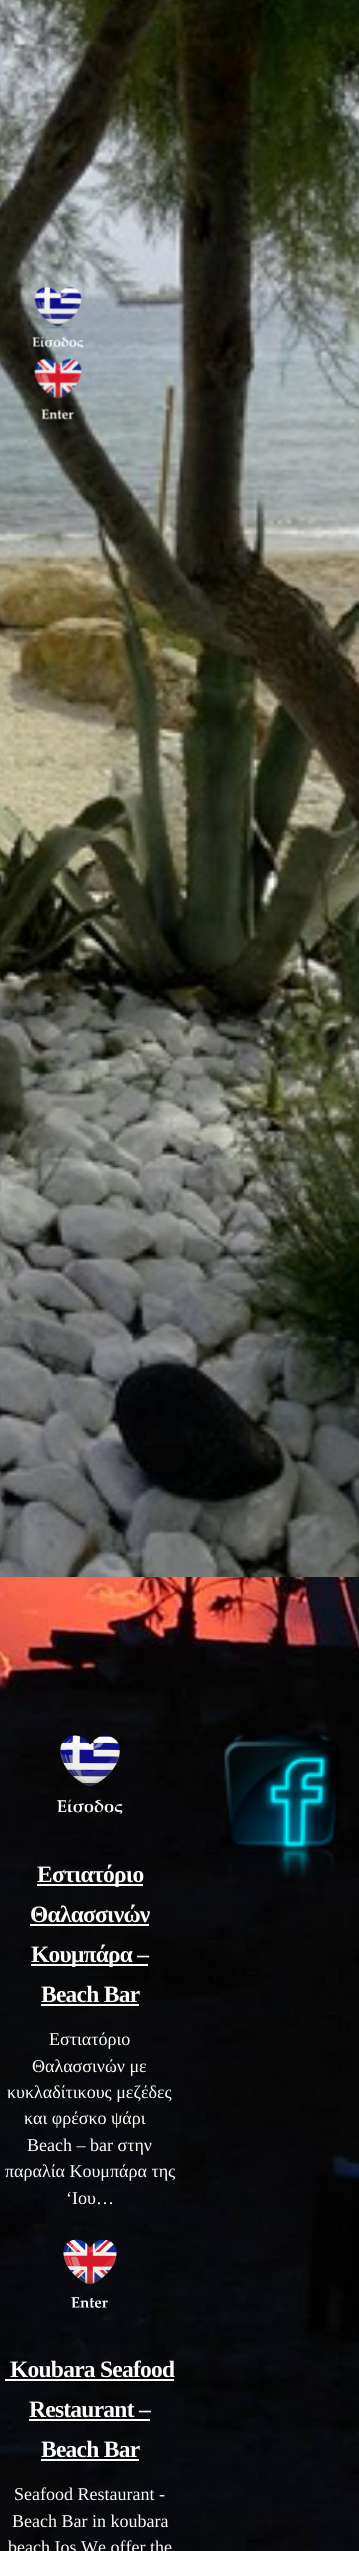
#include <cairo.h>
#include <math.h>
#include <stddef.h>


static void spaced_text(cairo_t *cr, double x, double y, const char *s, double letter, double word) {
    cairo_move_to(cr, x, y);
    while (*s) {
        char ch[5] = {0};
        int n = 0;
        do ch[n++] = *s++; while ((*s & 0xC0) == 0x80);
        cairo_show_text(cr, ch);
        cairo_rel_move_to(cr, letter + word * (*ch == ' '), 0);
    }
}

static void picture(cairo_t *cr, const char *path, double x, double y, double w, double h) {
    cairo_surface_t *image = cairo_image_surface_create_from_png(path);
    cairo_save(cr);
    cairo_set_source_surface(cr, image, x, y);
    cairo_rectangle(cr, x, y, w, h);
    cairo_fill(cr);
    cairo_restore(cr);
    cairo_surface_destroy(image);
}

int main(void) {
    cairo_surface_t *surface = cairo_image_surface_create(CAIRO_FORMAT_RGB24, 359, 2551);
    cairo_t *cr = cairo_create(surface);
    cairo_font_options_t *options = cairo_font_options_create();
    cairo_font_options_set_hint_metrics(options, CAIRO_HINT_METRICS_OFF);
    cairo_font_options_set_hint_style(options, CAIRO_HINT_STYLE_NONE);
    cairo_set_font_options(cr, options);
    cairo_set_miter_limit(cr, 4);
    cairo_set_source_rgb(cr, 1, 1, 1);
    cairo_paint(cr);
    picture(cr, "img1.png", 0, 0, 359, 1577);
    picture(cr, "img2.png", 32, 286, 52, 62);
    picture(cr, "img3.png", 34, 358, 48, 62);
    picture(cr, "img4.png", 0, 1577, 359, 974);
    picture(cr, "img5.png", 224, 1733, 116, 145);
    picture(cr, "img6.png", 57, 1735, 66, 79);
    cairo_set_source_rgb(cr, 1, 1, 1);
    cairo_rectangle(cr, 37, 1884, 106, 2);
    cairo_fill(cr);
    cairo_select_font_face(cr, "Liberation Serif", CAIRO_FONT_SLANT_NORMAL, CAIRO_FONT_WEIGHT_BOLD);
    cairo_set_font_size(cr, 23.5);
    spaced_text(cr, 37, 1882, "Εστιατόριο", -0.75, 0);
    spaced_text(cr, 30, 1922, "Θαλασσινών", -0.75, 0);
    cairo_rectangle(cr, 30, 1924, 119, 2);
    cairo_fill(cr);
    cairo_rectangle(cr, 31, 1964, 117, 2);
    cairo_fill(cr);
    spaced_text(cr, 31, 1962, "Κουμπάρα –", -0.75, 0);
    spaced_text(cr, 41, 2002, "Beach Bar", -0.75, 0);
    cairo_rectangle(cr, 41, 2004, 98, 2);
    cairo_fill(cr);
    cairo_select_font_face(cr, "Liberation Serif", CAIRO_FONT_SLANT_NORMAL, CAIRO_FONT_WEIGHT_NORMAL);
    cairo_set_font_size(cr, 18);
    cairo_move_to(cr, 49, 2045);
    cairo_show_text(cr, "Εστιατόριο");
    cairo_move_to(cr, 32, 2072);
    cairo_show_text(cr, "Θαλασσινών με");
    cairo_move_to(cr, 7, 2098);
    cairo_show_text(cr, "κυκλαδίτικους μεζέδες");
    cairo_move_to(cr, 24, 2124);
    cairo_show_text(cr, "και φρέσκο ψάρι");
    cairo_move_to(cr, 27, 2151);
    cairo_show_text(cr, "Beach – bar στην");
    cairo_move_to(cr, 5, 2177);
    cairo_show_text(cr, "παραλία Κουμπάρα της");
    cairo_move_to(cr, 66, 2204);
    cairo_show_text(cr, "‘Ιου…");
    picture(cr, "img7.png", 63, 2239, 54, 69);
    cairo_select_font_face(cr, "Liberation Serif", CAIRO_FONT_SLANT_NORMAL, CAIRO_FONT_WEIGHT_BOLD);
    cairo_set_font_size(cr, 23.5);
    spaced_text(cr, 10, 2377, "Koubara Seafood", -0.75, 0);
    cairo_rectangle(cr, 5, 2379, 169, 2);
    cairo_fill(cr);
    spaced_text(cr, 29, 2417, "Restaurant –", -0.75, 0);
    cairo_rectangle(cr, 29, 2419, 121, 2);
    cairo_fill(cr);
    spaced_text(cr, 41, 2457, "Beach Bar", -0.75, 0);
    cairo_rectangle(cr, 41, 2459, 98, 2);
    cairo_fill(cr);
    cairo_select_font_face(cr, "Liberation Serif", CAIRO_FONT_SLANT_NORMAL, CAIRO_FONT_WEIGHT_NORMAL);
    cairo_set_font_size(cr, 18);
    cairo_move_to(cr, 14, 2500);
    cairo_show_text(cr, "Seafood Restaurant -");
    cairo_move_to(cr, 12, 2527);
    cairo_show_text(cr, "Beach Bar in koubara");
    cairo_move_to(cr, 8, 2553);
    cairo_show_text(cr, "beach Ios.We offer the");
    cairo_surface_write_to_png(surface, "page.png");
    cairo_font_options_destroy(options);
    cairo_destroy(cr);
    cairo_surface_destroy(surface);
    return 0;
}
